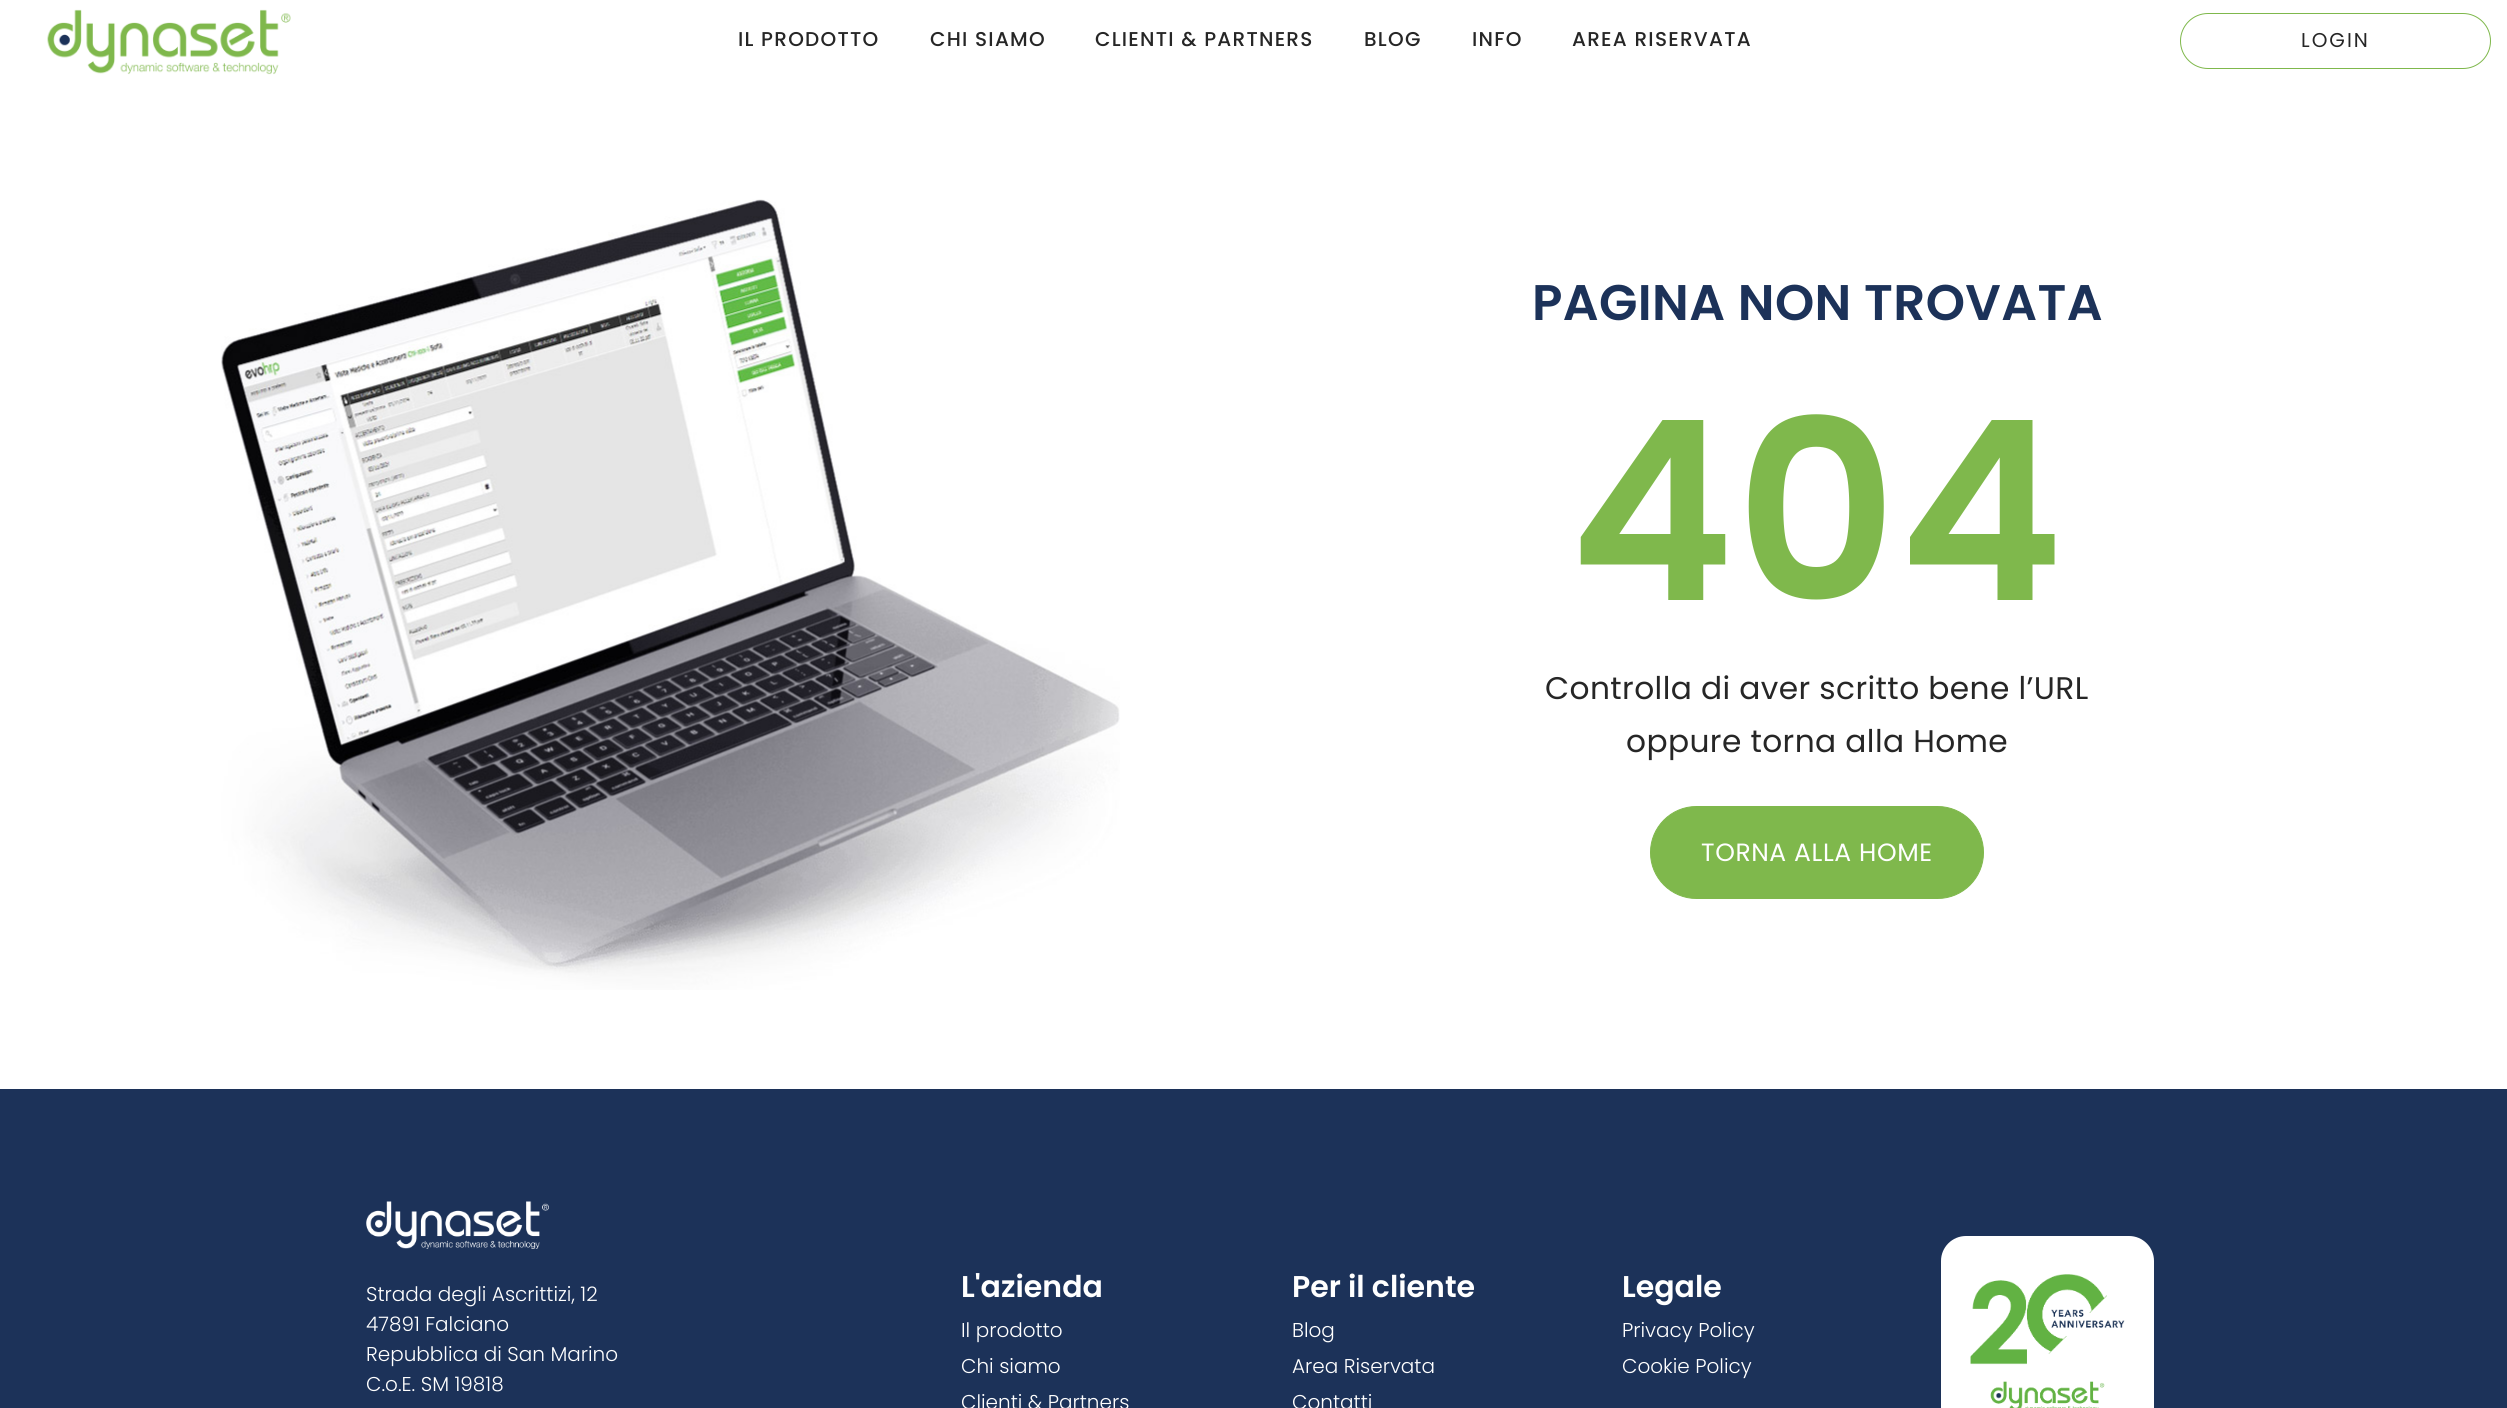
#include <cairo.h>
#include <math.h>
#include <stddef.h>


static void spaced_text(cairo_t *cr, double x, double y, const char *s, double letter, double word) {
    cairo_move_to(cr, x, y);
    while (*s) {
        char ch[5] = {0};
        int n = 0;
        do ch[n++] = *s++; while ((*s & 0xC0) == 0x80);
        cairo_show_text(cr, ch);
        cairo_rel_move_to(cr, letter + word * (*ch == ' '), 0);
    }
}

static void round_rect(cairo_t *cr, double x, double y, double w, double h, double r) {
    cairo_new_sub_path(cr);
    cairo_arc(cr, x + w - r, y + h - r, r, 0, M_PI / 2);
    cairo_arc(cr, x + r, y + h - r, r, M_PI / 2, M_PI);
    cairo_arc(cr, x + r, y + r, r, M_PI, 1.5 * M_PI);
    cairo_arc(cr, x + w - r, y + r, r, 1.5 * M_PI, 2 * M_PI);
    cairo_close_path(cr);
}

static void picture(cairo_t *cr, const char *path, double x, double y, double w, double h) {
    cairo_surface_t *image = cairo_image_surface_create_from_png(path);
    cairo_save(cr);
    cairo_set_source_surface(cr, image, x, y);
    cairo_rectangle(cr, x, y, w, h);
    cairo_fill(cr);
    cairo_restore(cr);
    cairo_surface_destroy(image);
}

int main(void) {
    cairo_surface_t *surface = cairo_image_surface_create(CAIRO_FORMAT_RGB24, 2507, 1408);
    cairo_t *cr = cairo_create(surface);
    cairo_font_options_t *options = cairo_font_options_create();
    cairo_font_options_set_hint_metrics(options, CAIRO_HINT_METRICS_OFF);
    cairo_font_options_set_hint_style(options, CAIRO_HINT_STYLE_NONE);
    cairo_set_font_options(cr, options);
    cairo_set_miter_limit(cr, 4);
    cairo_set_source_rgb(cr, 1, 1, 1);
    cairo_paint(cr);
    picture(cr, "img1.png", 47, 9, 244, 66);
    cairo_select_font_face(cr, "Poppins Medium", CAIRO_FONT_SLANT_NORMAL, CAIRO_FONT_WEIGHT_NORMAL);
    cairo_set_font_size(cr, 20);
    cairo_set_source_rgb(cr, 0.149, 0.149, 0.149);
    spaced_text(cr, 738, 46, "IL PRODOTTO", 1.25, 0);
    spaced_text(cr, 930, 46, "CHI SIAMO", 1.25, 0);
    spaced_text(cr, 1095, 46, "CLIENTI & PARTNERS", 1.25, 0);
    spaced_text(cr, 1364, 46, "BLOG", 1.25, 0);
    spaced_text(cr, 1472, 46, "INFO", 1.25, 0);
    spaced_text(cr, 1572, 46, "AREA RISERVATA", 1.25, 0);
    round_rect(cr, 2180.5, 13.5, 310, 55, 27.5);
    cairo_set_source_rgb(cr, 0.498, 0.722, 0.298);
    cairo_set_line_width(cr, 1);
    cairo_stroke(cr);
    cairo_select_font_face(cr, "Poppins", CAIRO_FONT_SLANT_NORMAL, CAIRO_FONT_WEIGHT_NORMAL);
    cairo_set_source_rgb(cr, 0.149, 0.149, 0.149);
    spaced_text(cr, 2301, 47, "LOGIN", 2, 0);
    picture(cr, "img2.png", 221, 199, 899, 791);
    cairo_select_font_face(cr, "Poppins SemiBold", CAIRO_FONT_SLANT_NORMAL, CAIRO_FONT_WEIGHT_NORMAL);
    cairo_set_font_size(cr, 50);
    cairo_set_source_rgb(cr, 0.11, 0.196, 0.349);
    spaced_text(cr, 1532, 320, "PAGINA NON TROVATA", 0.4, 0);
    cairo_set_font_size(cr, 250);
    cairo_set_source_rgb(cr, 0.498, 0.722, 0.298);
    spaced_text(cr, 1569, 600, "404", 1.25, 0);
    cairo_select_font_face(cr, "Poppins", CAIRO_FONT_SLANT_NORMAL, CAIRO_FONT_WEIGHT_NORMAL);
    cairo_set_font_size(cr, 31.25);
    cairo_set_source_rgb(cr, 0.149, 0.149, 0.149);
    spaced_text(cr, 1545, 699, "Controlla di aver scritto bene l’URL", 0.4, 0);
    spaced_text(cr, 1626, 752, "oppure torna alla Home", 0.4, 0);
    cairo_set_source_rgb(cr, 0.498, 0.722, 0.298);
    round_rect(cr, 1650.5, 806.5, 333, 92, 46);
    cairo_fill_preserve(cr);
    cairo_stroke(cr);
    cairo_set_font_size(cr, 25);
    cairo_set_source_rgb(cr, 1, 1, 1);
    spaced_text(cr, 1701, 861, "TORNA ALLA HOME", 0.6, 0);
    cairo_set_source_rgb(cr, 0.11, 0.196, 0.349);
    cairo_rectangle(cr, 0, 1089, 2507, 319);
    cairo_fill(cr);
    picture(cr, "img3.png", 366, 1201, 183, 48);
    cairo_select_font_face(cr, "Poppins Light", CAIRO_FONT_SLANT_NORMAL, CAIRO_FONT_WEIGHT_NORMAL);
    cairo_set_font_size(cr, 20);
    cairo_set_source_rgb(cr, 1, 1, 1);
    cairo_move_to(cr, 366, 1301);
    cairo_show_text(cr, "Strada degli Ascrittizi, 12");
    cairo_move_to(cr, 366, 1331);
    cairo_show_text(cr, "47891 Falciano");
    cairo_move_to(cr, 366, 1361);
    cairo_show_text(cr, "Repubblica di San Marino");
    cairo_move_to(cr, 366, 1391);
    cairo_show_text(cr, "C.o.E. SM 19818");
    cairo_select_font_face(cr, "Poppins SemiBold", CAIRO_FONT_SLANT_NORMAL, CAIRO_FONT_WEIGHT_NORMAL);
    cairo_set_font_size(cr, 30);
    cairo_move_to(cr, 961, 1297);
    cairo_show_text(cr, "L'azienda");
    cairo_select_font_face(cr, "Poppins Light", CAIRO_FONT_SLANT_NORMAL, CAIRO_FONT_WEIGHT_NORMAL);
    cairo_set_font_size(cr, 20);
    cairo_move_to(cr, 961, 1337);
    cairo_show_text(cr, "Il prodotto");
    cairo_move_to(cr, 961, 1373);
    cairo_show_text(cr, "Chi siamo");
    cairo_move_to(cr, 961, 1409);
    cairo_show_text(cr, "Clienti & Partners");
    cairo_select_font_face(cr, "Poppins SemiBold", CAIRO_FONT_SLANT_NORMAL, CAIRO_FONT_WEIGHT_NORMAL);
    cairo_set_font_size(cr, 30);
    cairo_move_to(cr, 1292, 1297);
    cairo_show_text(cr, "Per il cliente");
    cairo_select_font_face(cr, "Poppins Light", CAIRO_FONT_SLANT_NORMAL, CAIRO_FONT_WEIGHT_NORMAL);
    cairo_set_font_size(cr, 20);
    cairo_move_to(cr, 1292, 1337);
    cairo_show_text(cr, "Blog");
    cairo_move_to(cr, 1292, 1373);
    cairo_show_text(cr, "Area Riservata");
    cairo_move_to(cr, 1292, 1409);
    cairo_show_text(cr, "Contatti");
    cairo_select_font_face(cr, "Poppins SemiBold", CAIRO_FONT_SLANT_NORMAL, CAIRO_FONT_WEIGHT_NORMAL);
    cairo_set_font_size(cr, 30);
    cairo_move_to(cr, 1622, 1297);
    cairo_show_text(cr, "Legale");
    cairo_select_font_face(cr, "Poppins Light", CAIRO_FONT_SLANT_NORMAL, CAIRO_FONT_WEIGHT_NORMAL);
    cairo_set_font_size(cr, 20);
    cairo_move_to(cr, 1622, 1337);
    cairo_show_text(cr, "Privacy Policy");
    cairo_move_to(cr, 1622, 1373);
    cairo_show_text(cr, "Cookie Policy");
    round_rect(cr, 1941, 1236, 213, 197, 25);
    cairo_fill(cr);
    picture(cr, "img4.png", 1970, 1274, 155, 134);
    cairo_surface_write_to_png(surface, "page.png");
    cairo_font_options_destroy(options);
    cairo_destroy(cr);
    cairo_surface_destroy(surface);
    return 0;
}
